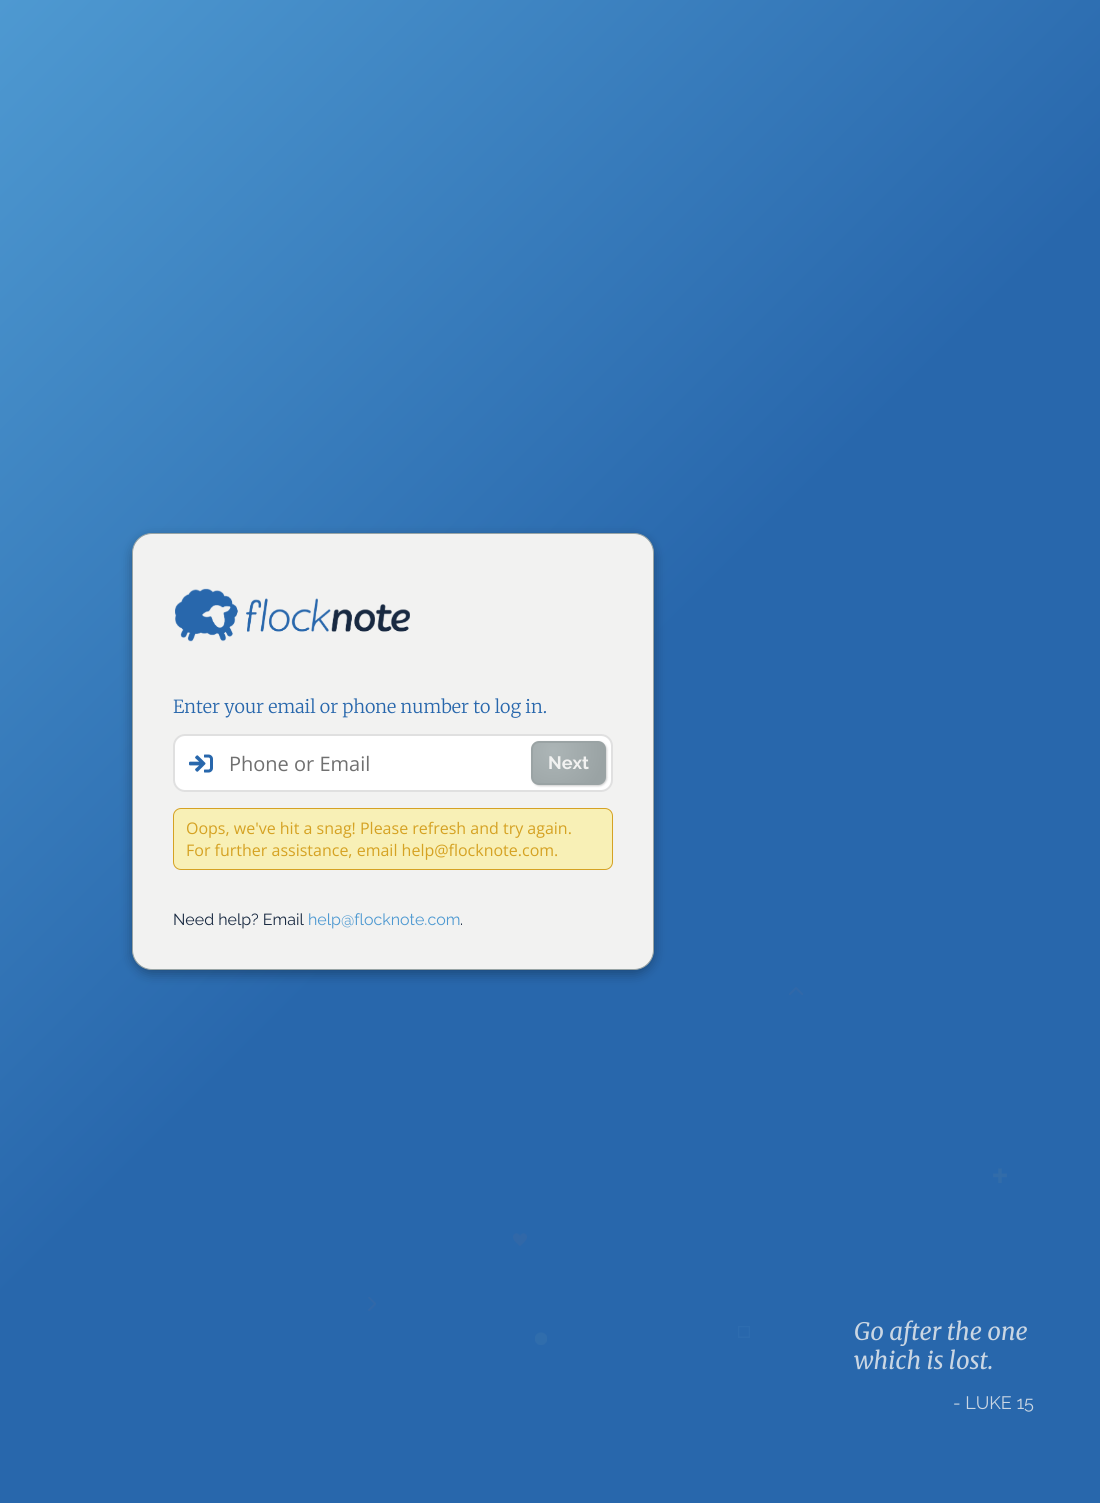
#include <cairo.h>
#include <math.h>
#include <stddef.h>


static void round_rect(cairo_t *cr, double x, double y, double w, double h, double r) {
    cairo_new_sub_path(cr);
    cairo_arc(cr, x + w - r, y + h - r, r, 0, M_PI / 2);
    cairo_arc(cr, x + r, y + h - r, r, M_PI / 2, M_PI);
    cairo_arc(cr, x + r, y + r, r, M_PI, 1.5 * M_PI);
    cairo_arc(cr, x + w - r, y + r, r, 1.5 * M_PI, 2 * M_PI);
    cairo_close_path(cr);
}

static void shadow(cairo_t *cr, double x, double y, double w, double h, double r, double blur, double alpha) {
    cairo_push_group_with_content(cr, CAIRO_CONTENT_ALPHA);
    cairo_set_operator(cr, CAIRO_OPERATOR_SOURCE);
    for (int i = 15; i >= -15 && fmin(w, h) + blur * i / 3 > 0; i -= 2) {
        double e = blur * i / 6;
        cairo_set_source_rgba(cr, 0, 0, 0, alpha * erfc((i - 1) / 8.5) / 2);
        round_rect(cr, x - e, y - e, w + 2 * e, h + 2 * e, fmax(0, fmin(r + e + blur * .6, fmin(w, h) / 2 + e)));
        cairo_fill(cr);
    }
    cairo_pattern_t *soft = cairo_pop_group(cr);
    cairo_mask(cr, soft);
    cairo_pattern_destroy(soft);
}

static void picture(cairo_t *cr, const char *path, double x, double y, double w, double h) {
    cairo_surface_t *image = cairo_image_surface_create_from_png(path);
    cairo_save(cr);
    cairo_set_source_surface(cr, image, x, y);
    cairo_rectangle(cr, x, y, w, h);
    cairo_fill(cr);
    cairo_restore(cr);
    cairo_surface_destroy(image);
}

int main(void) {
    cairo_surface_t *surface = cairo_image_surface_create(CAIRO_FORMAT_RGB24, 1100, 1503);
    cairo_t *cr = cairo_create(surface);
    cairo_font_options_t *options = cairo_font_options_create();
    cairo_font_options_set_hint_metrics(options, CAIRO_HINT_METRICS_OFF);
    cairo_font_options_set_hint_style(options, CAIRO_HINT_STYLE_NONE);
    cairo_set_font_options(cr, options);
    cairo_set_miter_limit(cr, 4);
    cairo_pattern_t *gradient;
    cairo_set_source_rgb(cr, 1, 1, 1);
    cairo_paint(cr);
    gradient = cairo_pattern_create_linear(-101, 101, 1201, 1402);
    cairo_pattern_add_color_stop_rgba(gradient, 0, 0.306, 0.6, 0.82, 1);
    cairo_pattern_add_color_stop_rgba(gradient, 0.5, 0.157, 0.404, 0.675, 1);
    cairo_pattern_add_color_stop_rgba(gradient, 1, 0.157, 0.404, 0.675, 1);
    cairo_set_source(cr, gradient);
    cairo_pattern_destroy(gradient);
    cairo_rectangle(cr, 0, 0, 1100, 1503);
    cairo_fill(cr);
    cairo_set_source_rgb(cr, 0, 0, 0);
    shadow(cr, 132, 537, 522, 437, 20, 6, 0.3);
    cairo_set_source_rgb(cr, 0.949, 0.949, 0.945);
    round_rect(cr, 132.5, 533.5, 521, 436, 19.5);
    cairo_fill_preserve(cr);
    cairo_set_source_rgb(cr, 0.596, 0.643, 0.647);
    cairo_set_line_width(cr, 1);
    cairo_stroke(cr);
    picture(cr, "img1.png", 175, 588, 235, 54);
    cairo_select_font_face(cr, "Merriweather Light", CAIRO_FONT_SLANT_NORMAL, CAIRO_FONT_WEIGHT_NORMAL);
    cairo_set_font_size(cr, 18);
    cairo_set_source_rgb(cr, 0.157, 0.404, 0.675);
    cairo_move_to(cr, 173, 713);
    cairo_show_text(cr, "Enter your email or phone number to log in.");
    cairo_set_source_rgb(cr, 1, 1, 1);
    round_rect(cr, 174, 735, 438, 56, 11);
    cairo_fill_preserve(cr);
    cairo_set_source_rgb(cr, 0.878, 0.878, 0.878);
    cairo_set_line_width(cr, 2);
    cairo_stroke(cr);
    picture(cr, "img2.png", 189, 754, 24, 19);
    cairo_select_font_face(cr, "Open Sans", CAIRO_FONT_SLANT_NORMAL, CAIRO_FONT_WEIGHT_NORMAL);
    cairo_set_font_size(cr, 20);
    cairo_set_source_rgb(cr, 0.439, 0.439, 0.439);
    cairo_move_to(cr, 229, 771);
    cairo_show_text(cr, "Phone or Email");
    cairo_set_source_rgb(cr, 0, 0, 0);
    shadow(cr, 532, 742, 75, 44, 8, 1, 0.2);
    cairo_set_source_rgb(cr, 0.604, 0.639, 0.643);
    round_rect(cr, 531, 741, 75, 44, 8);
    cairo_fill(cr);
    gradient = cairo_pattern_create_radial(553, 751, 0, 553, 751, 128);
    cairo_pattern_add_color_stop_rgba(gradient, 0, 0.675, 0.71, 0.714, 1);
    cairo_pattern_add_color_stop_rgba(gradient, 0.4, 0.604, 0.639, 0.643, 1);
    cairo_set_source(cr, gradient);
    cairo_pattern_destroy(gradient);
    round_rect(cr, 533, 743, 71, 40, 6);
    cairo_fill(cr);
    cairo_select_font_face(cr, "Raleway", CAIRO_FONT_SLANT_NORMAL, CAIRO_FONT_WEIGHT_BOLD);
    cairo_set_font_size(cr, 18);
    cairo_set_source_rgb(cr, 0.949, 0.949, 0.945);
    cairo_move_to(cr, 548, 769);
    cairo_show_text(cr, "Next");
    cairo_set_source_rgb(cr, 0.969, 0.941, 0.714);
    round_rect(cr, 173.5, 808.5, 439, 61, 7.5);
    cairo_fill_preserve(cr);
    cairo_set_source_rgb(cr, 0.835, 0.635, 0.137);
    cairo_set_line_width(cr, 1);
    cairo_stroke(cr);
    cairo_select_font_face(cr, "Open Sans", CAIRO_FONT_SLANT_NORMAL, CAIRO_FONT_WEIGHT_NORMAL);
    cairo_set_font_size(cr, 16);
    cairo_move_to(cr, 186, 834);
    cairo_show_text(cr, "Oops, we've hit a snag! Please refresh and try again.");
    cairo_move_to(cr, 186, 856);
    cairo_show_text(cr, "For further assistance, email help@flocknote.com.");
    cairo_select_font_face(cr, "Raleway", CAIRO_FONT_SLANT_NORMAL, CAIRO_FONT_WEIGHT_NORMAL);
    cairo_set_source_rgb(cr, 0.094, 0.161, 0.255);
    cairo_move_to(cr, 173, 925);
    cairo_show_text(cr, "Need help? Email");
    cairo_set_source_rgb(cr, 0.306, 0.6, 0.82);
    cairo_move_to(cr, 308, 925);
    cairo_show_text(cr, "help@flocknote.com");
    cairo_set_source_rgb(cr, 0.094, 0.161, 0.255);
    cairo_move_to(cr, 460, 925);
    cairo_show_text(cr, ".");
    picture(cr, "img3.png", 789, 987, 14, 8);
    picture(cr, "img4.png", 993, 1168, 14, 15);
    picture(cr, "img5.png", 513, 1233, 14, 13);
    picture(cr, "img6.png", 368, 1297, 8, 14);
    picture(cr, "img7.png", 535, 1332, 12, 13);
    picture(cr, "img8.png", 738, 1326, 12, 12);
    cairo_select_font_face(cr, "Merriweather", CAIRO_FONT_SLANT_ITALIC, CAIRO_FONT_WEIGHT_NORMAL);
    cairo_set_font_size(cr, 24);
    cairo_set_source_rgb(cr, 0.792, 0.839, 0.89);
    cairo_move_to(cr, 854, 1340);
    cairo_show_text(cr, "Go after the one");
    cairo_move_to(cr, 854, 1369);
    cairo_show_text(cr, "which is lost.");
    cairo_select_font_face(cr, "Raleway", CAIRO_FONT_SLANT_NORMAL, CAIRO_FONT_WEIGHT_NORMAL);
    cairo_set_font_size(cr, 18);
    cairo_move_to(cr, 953, 1409);
    cairo_show_text(cr, "- LUKE 15");
    cairo_surface_write_to_png(surface, "page.png");
    cairo_font_options_destroy(options);
    cairo_destroy(cr);
    cairo_surface_destroy(surface);
    return 0;
}
